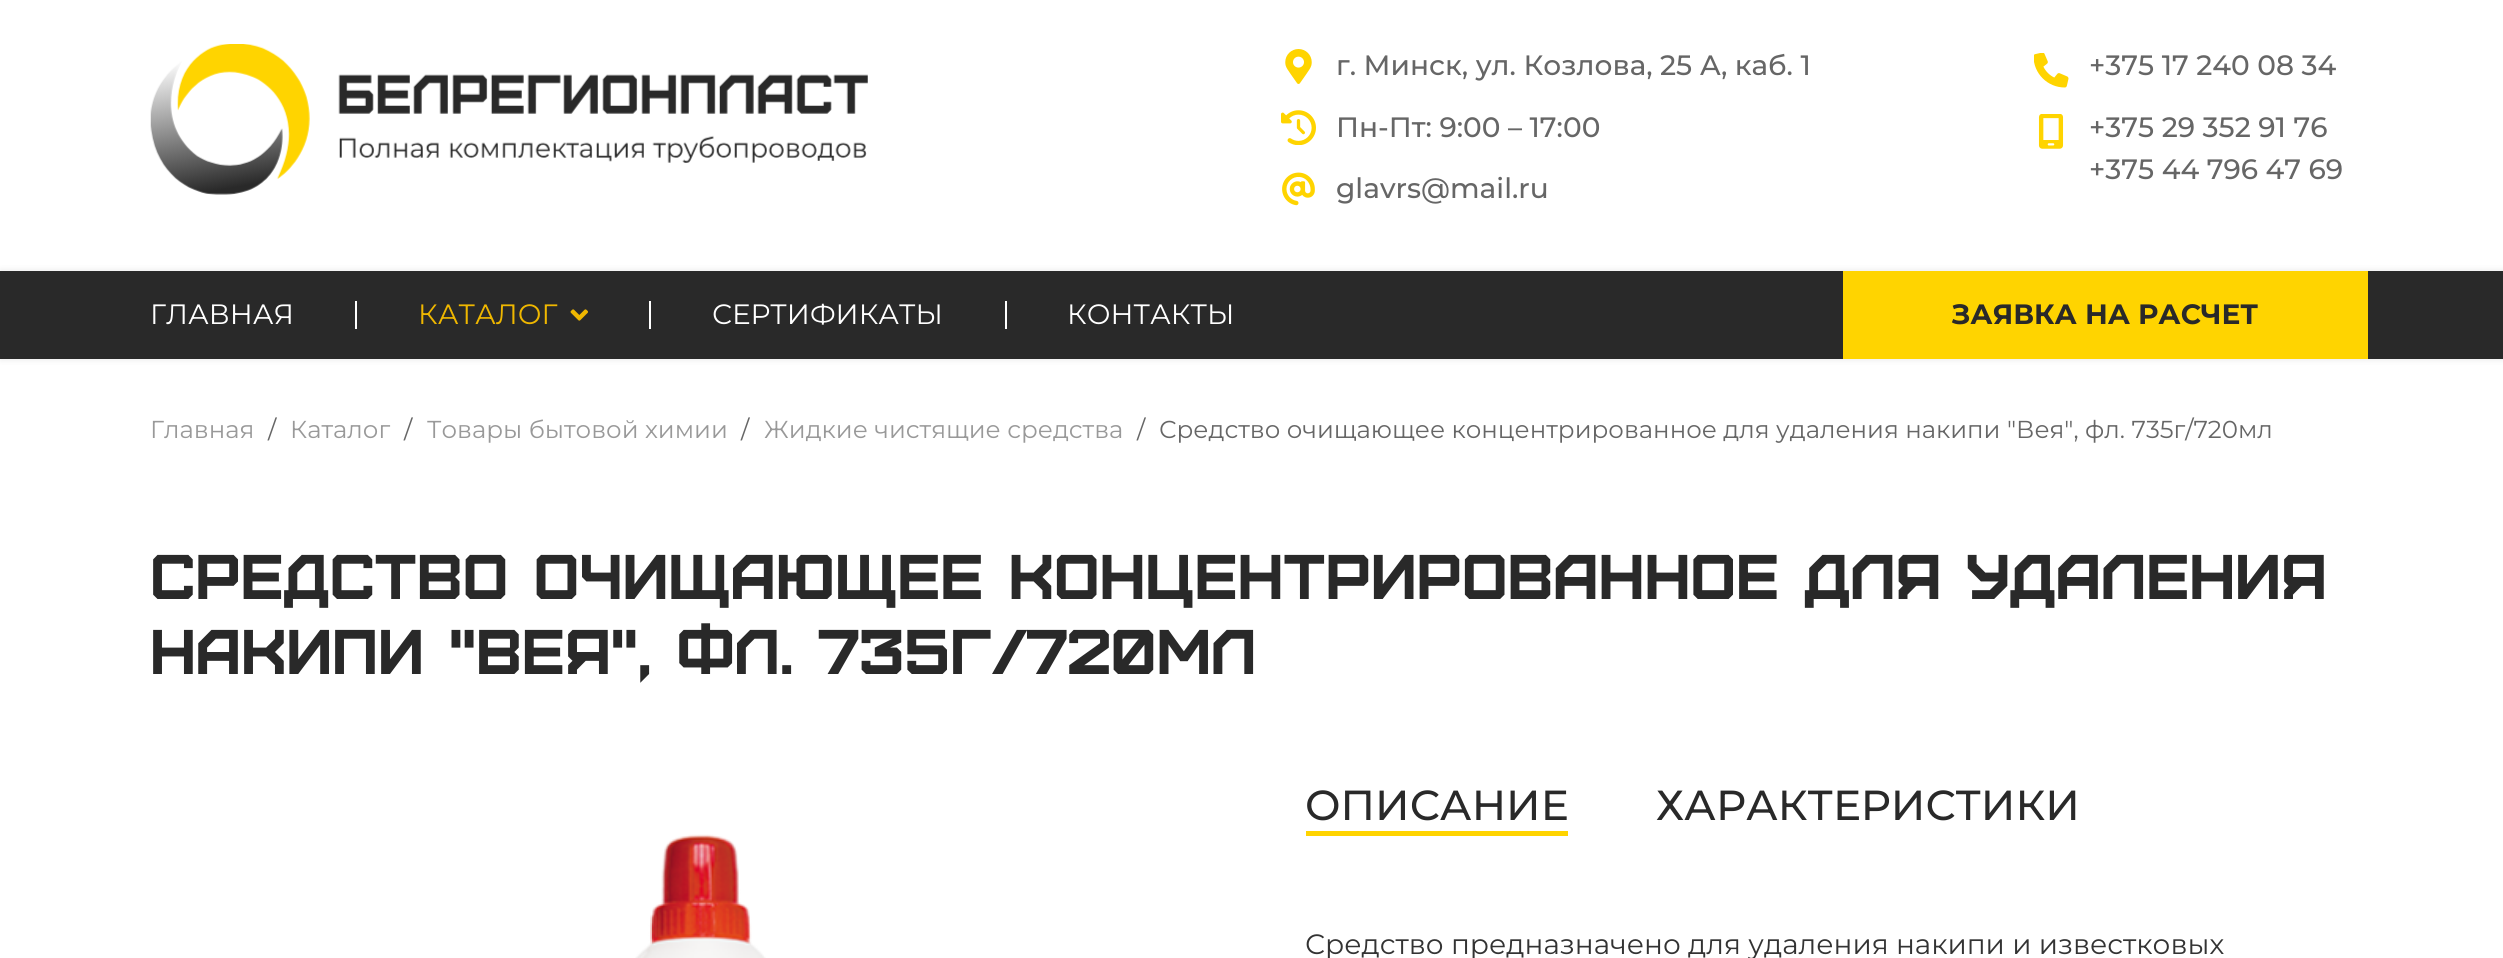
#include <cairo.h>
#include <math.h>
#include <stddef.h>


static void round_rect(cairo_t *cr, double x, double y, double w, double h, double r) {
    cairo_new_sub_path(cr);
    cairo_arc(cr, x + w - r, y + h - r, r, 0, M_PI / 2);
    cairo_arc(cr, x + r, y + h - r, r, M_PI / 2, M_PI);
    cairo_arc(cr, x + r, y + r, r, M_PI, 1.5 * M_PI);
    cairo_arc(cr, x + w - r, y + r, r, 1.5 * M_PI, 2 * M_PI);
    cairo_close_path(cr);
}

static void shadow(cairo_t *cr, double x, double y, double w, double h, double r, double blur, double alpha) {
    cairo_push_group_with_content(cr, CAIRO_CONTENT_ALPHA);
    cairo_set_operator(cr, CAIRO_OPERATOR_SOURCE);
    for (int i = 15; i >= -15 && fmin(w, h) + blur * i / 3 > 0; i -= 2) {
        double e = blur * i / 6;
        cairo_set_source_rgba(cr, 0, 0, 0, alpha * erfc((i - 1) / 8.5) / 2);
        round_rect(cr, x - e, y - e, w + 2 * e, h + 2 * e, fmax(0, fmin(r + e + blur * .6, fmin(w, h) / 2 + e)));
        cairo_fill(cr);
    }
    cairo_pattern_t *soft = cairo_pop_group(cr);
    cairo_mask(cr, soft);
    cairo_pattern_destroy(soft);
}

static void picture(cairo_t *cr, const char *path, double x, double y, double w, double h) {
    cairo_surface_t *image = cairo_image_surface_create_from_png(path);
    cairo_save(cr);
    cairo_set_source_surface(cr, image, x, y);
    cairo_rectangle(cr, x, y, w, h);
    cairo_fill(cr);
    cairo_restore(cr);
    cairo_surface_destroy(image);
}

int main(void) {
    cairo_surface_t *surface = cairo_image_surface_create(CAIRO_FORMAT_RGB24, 2503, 958);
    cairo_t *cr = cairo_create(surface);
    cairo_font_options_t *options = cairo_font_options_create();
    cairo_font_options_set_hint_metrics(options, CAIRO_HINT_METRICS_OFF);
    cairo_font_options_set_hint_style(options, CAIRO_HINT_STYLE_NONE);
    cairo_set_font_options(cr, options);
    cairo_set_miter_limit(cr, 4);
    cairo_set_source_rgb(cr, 1, 1, 1);
    cairo_paint(cr);
    picture(cr, "img1.png", 150, 44, 718, 151);
    picture(cr, "img2.png", 1285, 49, 27, 35);
    cairo_select_font_face(cr, "Montserrat Thin", CAIRO_FONT_SLANT_NORMAL, CAIRO_FONT_WEIGHT_NORMAL);
    cairo_set_font_size(cr, 28);
    cairo_set_source_rgb(cr, 0.4, 0.4, 0.4);
    cairo_move_to(cr, 1336, 75);
    cairo_show_text(cr, "г. Минск, ул. Козлова, 25 А, каб. 1");
    picture(cr, "img3.png", 1281, 110, 35, 35);
    cairo_move_to(cr, 1336, 137);
    cairo_show_text(cr, "Пн-Пт: 9:00 – 17:00");
    picture(cr, "img4.png", 1282, 172, 33, 34);
    cairo_move_to(cr, 1336, 198);
    cairo_show_text(cr, "glavrs@mail.ru");
    picture(cr, "img5.png", 2034, 53, 35, 35);
    cairo_move_to(cr, 2089, 75);
    cairo_show_text(cr, "+375 17 240 08 34");
    picture(cr, "img6.png", 2038, 114, 26, 35);
    cairo_move_to(cr, 2089, 137);
    cairo_show_text(cr, "+375 29 352 91 76");
    cairo_move_to(cr, 2089, 179);
    cairo_show_text(cr, "+375 44 796 47 69");
    cairo_set_source_rgb(cr, 0, 0, 0);
    shadow(cr, 0, 271, 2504, 88, 0, 3.5, 0.1);
    cairo_set_source_rgb(cr, 0.161, 0.161, 0.161);
    cairo_rectangle(cr, 0, 271, 2503, 88);
    cairo_fill(cr);
    cairo_set_source_rgb(cr, 1, 1, 1);
    cairo_rectangle(cr, 355, 301, 2, 28);
    cairo_fill(cr);
    cairo_select_font_face(cr, "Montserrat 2 Thin", CAIRO_FONT_SLANT_NORMAL, CAIRO_FONT_WEIGHT_NORMAL);
    cairo_move_to(cr, 150, 324);
    cairo_show_text(cr, "ГЛАВНАЯ");
    cairo_rectangle(cr, 649, 301, 2, 28);
    cairo_fill(cr);
    cairo_set_source_rgb(cr, 0.937, 0.718, 0);
    cairo_move_to(cr, 418, 324);
    cairo_show_text(cr, "КАТАЛОГ");
    picture(cr, "img7.png", 570, 309, 18, 12);
    cairo_set_source_rgb(cr, 1, 1, 1);
    cairo_rectangle(cr, 1005, 301, 2, 28);
    cairo_fill(cr);
    cairo_move_to(cr, 712, 324);
    cairo_show_text(cr, "СЕРТИФИКАТЫ");
    cairo_move_to(cr, 1067, 324);
    cairo_show_text(cr, "КОНТАКТЫ");
    cairo_set_source_rgb(cr, 1, 0.831, 0);
    cairo_rectangle(cr, 1843, 271, 525, 88);
    cairo_fill(cr);
    cairo_select_font_face(cr, "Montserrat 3 Thin", CAIRO_FONT_SLANT_NORMAL, CAIRO_FONT_WEIGHT_NORMAL);
    cairo_set_source_rgb(cr, 0.161, 0.161, 0.161);
    cairo_move_to(cr, 1952, 324);
    cairo_show_text(cr, "ЗАЯВКА НА РАСЧЕТ");
    cairo_select_font_face(cr, "Montserrat 2 Thin", CAIRO_FONT_SLANT_NORMAL, CAIRO_FONT_WEIGHT_NORMAL);
    cairo_set_font_size(cr, 24.5);
    cairo_set_source_rgb(cr, 0.6, 0.6, 0.6);
    cairo_move_to(cr, 150, 438);
    cairo_show_text(cr, "Главная");
    cairo_set_source_rgb(cr, 0.4, 0.4, 0.4);
    cairo_move_to(cr, 268, 438);
    cairo_show_text(cr, "/");
    cairo_set_source_rgb(cr, 0.6, 0.6, 0.6);
    cairo_move_to(cr, 290, 438);
    cairo_show_text(cr, "Каталог");
    cairo_set_source_rgb(cr, 0.4, 0.4, 0.4);
    cairo_move_to(cr, 404, 438);
    cairo_show_text(cr, "/");
    cairo_set_source_rgb(cr, 0.6, 0.6, 0.6);
    cairo_move_to(cr, 427, 438);
    cairo_show_text(cr, "Товары бытовой химии");
    cairo_set_source_rgb(cr, 0.4, 0.4, 0.4);
    cairo_move_to(cr, 741, 438);
    cairo_show_text(cr, "/");
    cairo_set_source_rgb(cr, 0.6, 0.6, 0.6);
    cairo_move_to(cr, 764, 438);
    cairo_show_text(cr, "Жидкие чистящие средства");
    cairo_set_source_rgb(cr, 0.4, 0.4, 0.4);
    cairo_move_to(cr, 1137, 438);
    cairo_show_text(cr, "/");
    cairo_move_to(cr, 1159, 438);
    cairo_show_text(cr, "Средство очищающее концентрированное для удаления накипи \"Вея\", фл. 735г/720мл");
    cairo_select_font_face(cr, "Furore", CAIRO_FONT_SLANT_NORMAL, CAIRO_FONT_WEIGHT_NORMAL);
    cairo_set_font_size(cr, 63);
    cairo_set_source_rgb(cr, 0.161, 0.161, 0.161);
    cairo_move_to(cr, 150, 599);
    cairo_show_text(cr, "Средство очищающее концентрированное для удаления");
    cairo_move_to(cr, 150, 674);
    cairo_show_text(cr, "накипи \"Вея\", фл. 735г/720мл");
    picture(cr, "img8.png", 635, 834, 131, 124);
    cairo_select_font_face(cr, "Montserrat Thin", CAIRO_FONT_SLANT_NORMAL, CAIRO_FONT_WEIGHT_NORMAL);
    cairo_set_font_size(cr, 42);
    cairo_move_to(cr, 1305, 820);
    cairo_show_text(cr, "ОПИСАНИЕ");
    cairo_set_source_rgb(cr, 1, 0.831, 0);
    cairo_rectangle(cr, 1306, 831, 262, 5);
    cairo_fill(cr);
    cairo_set_source_rgb(cr, 0.161, 0.161, 0.161);
    cairo_move_to(cr, 1656, 820);
    cairo_show_text(cr, "ХАРАКТЕРИСТИКИ");
    cairo_select_font_face(cr, "Montserrat 2 Thin", CAIRO_FONT_SLANT_NORMAL, CAIRO_FONT_WEIGHT_NORMAL);
    cairo_set_font_size(cr, 28);
    cairo_set_source_rgb(cr, 0.2, 0.2, 0.2);
    cairo_move_to(cr, 1305, 954);
    cairo_show_text(cr, "Средство предназначено для удаления накипи и известковых");
    cairo_surface_write_to_png(surface, "page.png");
    cairo_font_options_destroy(options);
    cairo_destroy(cr);
    cairo_surface_destroy(surface);
    return 0;
}
